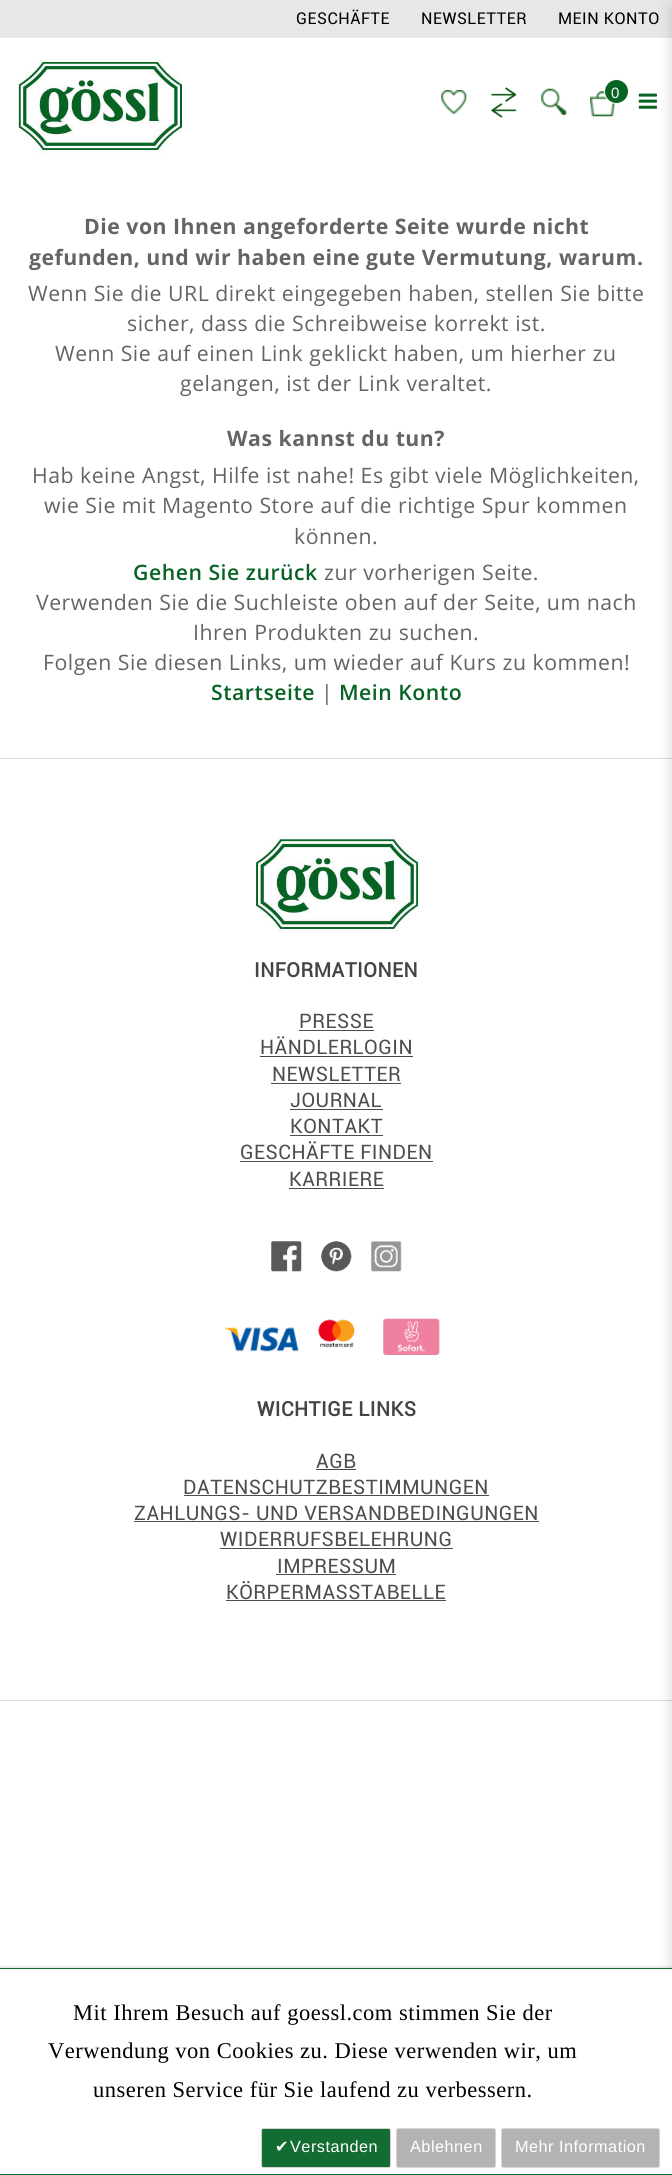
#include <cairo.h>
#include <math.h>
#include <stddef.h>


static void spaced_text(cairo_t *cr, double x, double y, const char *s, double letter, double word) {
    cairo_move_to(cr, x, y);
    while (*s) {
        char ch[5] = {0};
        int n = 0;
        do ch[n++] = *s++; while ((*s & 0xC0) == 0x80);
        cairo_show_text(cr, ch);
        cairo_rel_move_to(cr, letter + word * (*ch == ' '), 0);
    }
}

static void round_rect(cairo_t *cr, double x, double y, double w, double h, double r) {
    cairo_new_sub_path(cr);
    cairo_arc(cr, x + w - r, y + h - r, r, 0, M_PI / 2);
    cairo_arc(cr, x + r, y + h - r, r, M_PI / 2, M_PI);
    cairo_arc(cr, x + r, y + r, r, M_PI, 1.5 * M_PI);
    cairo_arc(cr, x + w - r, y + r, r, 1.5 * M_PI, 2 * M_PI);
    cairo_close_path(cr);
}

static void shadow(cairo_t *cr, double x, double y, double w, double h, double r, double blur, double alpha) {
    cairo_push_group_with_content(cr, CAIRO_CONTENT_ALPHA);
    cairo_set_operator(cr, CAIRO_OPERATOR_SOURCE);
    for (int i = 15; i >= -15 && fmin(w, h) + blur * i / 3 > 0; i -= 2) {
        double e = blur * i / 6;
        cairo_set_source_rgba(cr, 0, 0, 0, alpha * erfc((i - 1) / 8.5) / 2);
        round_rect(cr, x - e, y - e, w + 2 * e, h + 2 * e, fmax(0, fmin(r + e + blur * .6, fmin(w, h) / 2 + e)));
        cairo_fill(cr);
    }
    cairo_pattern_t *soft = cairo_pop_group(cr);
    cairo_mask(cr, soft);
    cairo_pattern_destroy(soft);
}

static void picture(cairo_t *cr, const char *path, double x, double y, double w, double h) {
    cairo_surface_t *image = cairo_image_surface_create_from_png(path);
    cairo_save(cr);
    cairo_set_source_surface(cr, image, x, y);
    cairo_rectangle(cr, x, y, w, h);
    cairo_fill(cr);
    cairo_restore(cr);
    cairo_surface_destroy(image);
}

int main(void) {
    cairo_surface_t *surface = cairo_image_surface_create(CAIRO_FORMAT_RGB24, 672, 2175);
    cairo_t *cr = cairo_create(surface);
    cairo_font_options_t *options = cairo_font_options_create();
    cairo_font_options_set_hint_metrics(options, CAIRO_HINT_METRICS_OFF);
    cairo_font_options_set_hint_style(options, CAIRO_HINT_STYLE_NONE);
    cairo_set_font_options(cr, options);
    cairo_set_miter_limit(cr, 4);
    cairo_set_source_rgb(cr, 1, 1, 1);
    cairo_paint(cr);
    cairo_set_source_rgb(cr, 0.902, 0.906, 0.91);
    cairo_rectangle(cr, 0, 0, 672, 38);
    cairo_fill(cr);
    cairo_select_font_face(cr, "Roboto", CAIRO_FONT_SLANT_NORMAL, CAIRO_FONT_WEIGHT_NORMAL);
    cairo_set_font_size(cr, 16.25);
    cairo_set_source_rgb(cr, 0, 0, 0);
    spaced_text(cr, 296, 24, "GESCHÄFTE", 0.5, 0);
    spaced_text(cr, 421, 24, "NEWSLETTER", 0.5, 0);
    spaced_text(cr, 558, 24, "MEIN KONTO", 0.5, 0);
    picture(cr, "img1.png", 18, 60, 165, 94);
    picture(cr, "img2.png", 441, 90, 26, 24);
    picture(cr, "img3.png", 491, 87, 26, 31);
    picture(cr, "img4.png", 541, 88, 26, 27);
    picture(cr, "img5.png", 590, 91, 25, 26);
    cairo_set_source_rgb(cr, 0.027, 0.388, 0.141);
    cairo_arc(cr, 616.5, 91.5, 12, 0, 2 * M_PI);
    cairo_fill_preserve(cr);
    cairo_set_source_rgb(cr, 1, 1, 1);
    cairo_set_line_width(cr, 1);
    cairo_stroke(cr);
    cairo_select_font_face(cr, "Liberation Sans", CAIRO_FONT_SLANT_NORMAL, CAIRO_FONT_WEIGHT_NORMAL);
    cairo_set_font_size(cr, 15);
    spaced_text(cr, 611, 98, "0", 0.5, 0);
    picture(cr, "img6.png", 638, 93, 19, 16);
    cairo_set_source_rgb(cr, 0.867, 0.867, 0.867);
    cairo_rectangle(cr, 0, 758, 672, 1);
    cairo_fill(cr);
    cairo_rectangle(cr, 0, 1700, 672, 1);
    cairo_fill(cr);
    cairo_set_source_rgb(cr, 0, 0, 0);
    shadow(cr, 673, 8, 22, 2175, 0, 7.5, 0.18);
    cairo_select_font_face(cr, "Open Sans", CAIRO_FONT_SLANT_NORMAL, CAIRO_FONT_WEIGHT_BOLD);
    cairo_set_font_size(cr, 21.25);
    cairo_set_source_rgb(cr, 0.392, 0.392, 0.392);
    spaced_text(cr, 84, 234, "Die von Ihnen angeforderte Seite wurde nicht", 0.5, 0);
    spaced_text(cr, 29, 265, "gefunden, und wir haben eine gute Vermutung, warum.", 0.5, 0);
    cairo_select_font_face(cr, "Open Sans", CAIRO_FONT_SLANT_NORMAL, CAIRO_FONT_WEIGHT_NORMAL);
    spaced_text(cr, 28, 301, "Wenn Sie die URL direkt eingegeben haben, stellen Sie bitte", 0.5, 0);
    spaced_text(cr, 127, 331, "sicher, dass die Schreibweise korrekt ist.", 0.5, 0);
    spaced_text(cr, 55, 361, "Wenn Sie auf einen Link geklickt haben, um hierher zu", 0.5, 0);
    spaced_text(cr, 180, 391, "gelangen, ist der Link veraltet.", 0.5, 0);
    cairo_select_font_face(cr, "Open Sans", CAIRO_FONT_SLANT_NORMAL, CAIRO_FONT_WEIGHT_BOLD);
    spaced_text(cr, 227, 446, "Was kannst du tun?", 0.5, 0);
    cairo_select_font_face(cr, "Open Sans", CAIRO_FONT_SLANT_NORMAL, CAIRO_FONT_WEIGHT_NORMAL);
    spaced_text(cr, 32, 483, "Hab keine Angst, Hilfe ist nahe! Es gibt viele Möglichkeiten,", 0.5, 0);
    spaced_text(cr, 44, 513, "wie Sie mit Magento Store auf die richtige Spur kommen", 0.5, 0);
    spaced_text(cr, 294, 544, "können.", 0.5, 0);
    cairo_select_font_face(cr, "Open Sans SemiBold", CAIRO_FONT_SLANT_NORMAL, CAIRO_FONT_WEIGHT_NORMAL);
    cairo_set_source_rgb(cr, 0.027, 0.388, 0.141);
    spaced_text(cr, 133, 580, "Gehen Sie zurück", 0.5, 0);
    cairo_select_font_face(cr, "Open Sans", CAIRO_FONT_SLANT_NORMAL, CAIRO_FONT_WEIGHT_NORMAL);
    cairo_set_source_rgb(cr, 0.392, 0.392, 0.392);
    spaced_text(cr, 324, 580, "zur vorherigen Seite.", 0.5, 0);
    spaced_text(cr, 36, 610, "Verwenden Sie die Suchleiste oben auf der Seite, um nach", 0.5, 0);
    spaced_text(cr, 193, 640, "Ihren Produkten zu suchen.", 0.5, 0);
    spaced_text(cr, 43, 670, "Folgen Sie diesen Links, um wieder auf Kurs zu kommen!", 0.5, 0);
    cairo_select_font_face(cr, "Open Sans SemiBold", CAIRO_FONT_SLANT_NORMAL, CAIRO_FONT_WEIGHT_NORMAL);
    cairo_set_source_rgb(cr, 0.027, 0.388, 0.141);
    spaced_text(cr, 211, 700, "Startseite", 0.5, 0);
    cairo_select_font_face(cr, "Open Sans", CAIRO_FONT_SLANT_NORMAL, CAIRO_FONT_WEIGHT_NORMAL);
    cairo_set_source_rgb(cr, 0.392, 0.392, 0.392);
    spaced_text(cr, 321, 700, "|", 0.5, 0);
    cairo_select_font_face(cr, "Open Sans SemiBold", CAIRO_FONT_SLANT_NORMAL, CAIRO_FONT_WEIGHT_NORMAL);
    cairo_set_source_rgb(cr, 0.027, 0.388, 0.141);
    spaced_text(cr, 339, 700, "Mein Konto", 0.5, 0);
    picture(cr, "img7.png", 256, 837, 163, 96);
    cairo_select_font_face(cr, "Roboto", CAIRO_FONT_SLANT_NORMAL, CAIRO_FONT_WEIGHT_BOLD);
    cairo_set_font_size(cr, 20);
    cairo_set_source_rgb(cr, 0.267, 0.267, 0.267);
    spaced_text(cr, 254, 977, "INFORMATIONEN", 0.5, 0);
    cairo_select_font_face(cr, "Roboto", CAIRO_FONT_SLANT_NORMAL, CAIRO_FONT_WEIGHT_NORMAL);
    cairo_set_source_rgb(cr, 0.302, 0.302, 0.302);
    spaced_text(cr, 299, 1028, "PRESSE", 0.5, 0);
    cairo_rectangle(cr, 299, 1030, 75, 1);
    cairo_fill(cr);
    spaced_text(cr, 260, 1054, "HÄNDLERLOGIN", 0.5, 0);
    cairo_set_source_rgb(cr, 0.267, 0.267, 0.267);
    cairo_rectangle(cr, 260, 1056, 153, 1);
    cairo_fill(cr);
    cairo_set_source_rgb(cr, 0.302, 0.302, 0.302);
    spaced_text(cr, 272, 1081, "NEWSLETTER", 0.5, 0);
    cairo_rectangle(cr, 271, 1083, 130, 1);
    cairo_fill(cr);
    spaced_text(cr, 290, 1107, "JOURNAL", 0.5, 0);
    cairo_rectangle(cr, 290, 1109, 93, 1);
    cairo_fill(cr);
    spaced_text(cr, 290, 1133, "KONTAKT", 0.5, 0);
    cairo_rectangle(cr, 290, 1135, 93, 1);
    cairo_fill(cr);
    spaced_text(cr, 240, 1159, "GESCHÄFTE FINDEN", 0.5, 0);
    cairo_rectangle(cr, 240, 1161, 193, 1);
    cairo_fill(cr);
    spaced_text(cr, 289, 1186, "KARRIERE", 0.5, 0);
    cairo_rectangle(cr, 289, 1188, 95, 1);
    cairo_fill(cr);
    picture(cr, "img8.png", 271, 1241, 31, 31);
    picture(cr, "img9.png", 321, 1241, 31, 31);
    picture(cr, "img10.png", 371, 1241, 31, 31);
    picture(cr, "img11.png", 224, 1327, 75, 25);
    picture(cr, "img12.png", 318, 1319, 37, 29);
    picture(cr, "img13.png", 383, 1318, 57, 37);
    cairo_select_font_face(cr, "Roboto", CAIRO_FONT_SLANT_NORMAL, CAIRO_FONT_WEIGHT_BOLD);
    cairo_set_source_rgb(cr, 0.267, 0.267, 0.267);
    spaced_text(cr, 257, 1416, "WICHTIGE LINKS", 0.5, 0);
    cairo_select_font_face(cr, "Roboto", CAIRO_FONT_SLANT_NORMAL, CAIRO_FONT_WEIGHT_NORMAL);
    cairo_set_source_rgb(cr, 0.302, 0.302, 0.302);
    spaced_text(cr, 316, 1468, "AGB", 0.5, 0);
    cairo_set_source_rgb(cr, 0.267, 0.267, 0.267);
    cairo_rectangle(cr, 316, 1469, 40, 1);
    cairo_fill(cr);
    cairo_set_source_rgb(cr, 0.302, 0.302, 0.302);
    spaced_text(cr, 183, 1494, "DATENSCHUTZBESTIMMUNGEN", 0.5, 0);
    cairo_rectangle(cr, 184, 1495, 305, 1);
    cairo_fill(cr);
    spaced_text(cr, 134, 1520, "ZAHLUNGS- UND VERSANDBEDINGUNGEN", 0.5, 0);
    cairo_rectangle(cr, 134, 1521, 405, 1);
    cairo_fill(cr);
    spaced_text(cr, 220, 1546, "WIDERRUFSBELEHRUNG", 0.5, 0);
    cairo_rectangle(cr, 220, 1548, 233, 1);
    cairo_fill(cr);
    spaced_text(cr, 277, 1573, "IMPRESSUM", 0.5, 0);
    cairo_rectangle(cr, 276, 1574, 120, 1);
    cairo_fill(cr);
    spaced_text(cr, 226, 1599, "KÖRPERMASSTABELLE", 0.5, 0);
    cairo_rectangle(cr, 226, 1600, 220, 1);
    cairo_fill(cr);
    cairo_set_source_rgb(cr, 0, 0, 0);
    shadow(cr, 0, 1970, 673, 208, 0, 3, 0.47);
    cairo_set_source_rgb(cr, 1, 1, 1);
    cairo_rectangle(cr, 0, 1969, 672, 205);
    cairo_fill(cr);
    cairo_set_source_rgb(cr, 0.075, 0.424, 0.196);
    cairo_rectangle(cr, 0, 1968, 672, 1);
    cairo_fill(cr);
    cairo_rectangle(cr, 0, 2174, 672, 1);
    cairo_fill(cr);
    cairo_select_font_face(cr, "Liberation Serif", CAIRO_FONT_SLANT_NORMAL, CAIRO_FONT_WEIGHT_NORMAL);
    cairo_set_font_size(cr, 22.5);
    cairo_set_source_rgb(cr, 0, 0, 0);
    spaced_text(cr, 73, 2020, "Mit Ihrem Besuch auf goessl.com stimmen Sie der", 0.5, 0);
    spaced_text(cr, 48, 2058, "Verwendung von Cookies zu. Diese verwenden wir, um", 0.5, 0);
    spaced_text(cr, 93, 2097, "unseren Service für Sie laufend zu verbessern.", 0.5, 0);
    cairo_set_source_rgb(cr, 0.075, 0.424, 0.196);
    round_rect(cr, 261.5, 2128.5, 129, 39, 2);
    cairo_fill_preserve(cr);
    cairo_set_source_rgb(cr, 0.831, 0.831, 0.831);
    cairo_stroke(cr);
    cairo_select_font_face(cr, "DejaVu Sans", CAIRO_FONT_SLANT_NORMAL, CAIRO_FONT_WEIGHT_NORMAL);
    cairo_set_font_size(cr, 16.25);
    cairo_set_source_rgb(cr, 1, 1, 1);
    spaced_text(cr, 275, 2152, "✔", 0.5, 0);
    cairo_select_font_face(cr, "Liberation Sans", CAIRO_FONT_SLANT_NORMAL, CAIRO_FONT_WEIGHT_NORMAL);
    spaced_text(cr, 290, 2152, "Verstanden", 0.5, 0);
    cairo_set_source_rgb(cr, 0.702, 0.702, 0.702);
    round_rect(cr, 396.5, 2128.5, 99, 39, 2);
    cairo_fill_preserve(cr);
    cairo_set_source_rgb(cr, 0.831, 0.831, 0.831);
    cairo_stroke(cr);
    cairo_set_source_rgb(cr, 1, 1, 1);
    spaced_text(cr, 410, 2152, "Ablehnen", 0.5, 0);
    cairo_set_source_rgb(cr, 0.702, 0.702, 0.702);
    round_rect(cr, 501.5, 2128.5, 158, 39, 2);
    cairo_fill_preserve(cr);
    cairo_set_source_rgb(cr, 0.831, 0.831, 0.831);
    cairo_stroke(cr);
    cairo_set_source_rgb(cr, 1, 1, 1);
    spaced_text(cr, 515, 2152, "Mehr Information", 0.5, 0);
    cairo_surface_write_to_png(surface, "page.png");
    cairo_font_options_destroy(options);
    cairo_destroy(cr);
    cairo_surface_destroy(surface);
    return 0;
}
